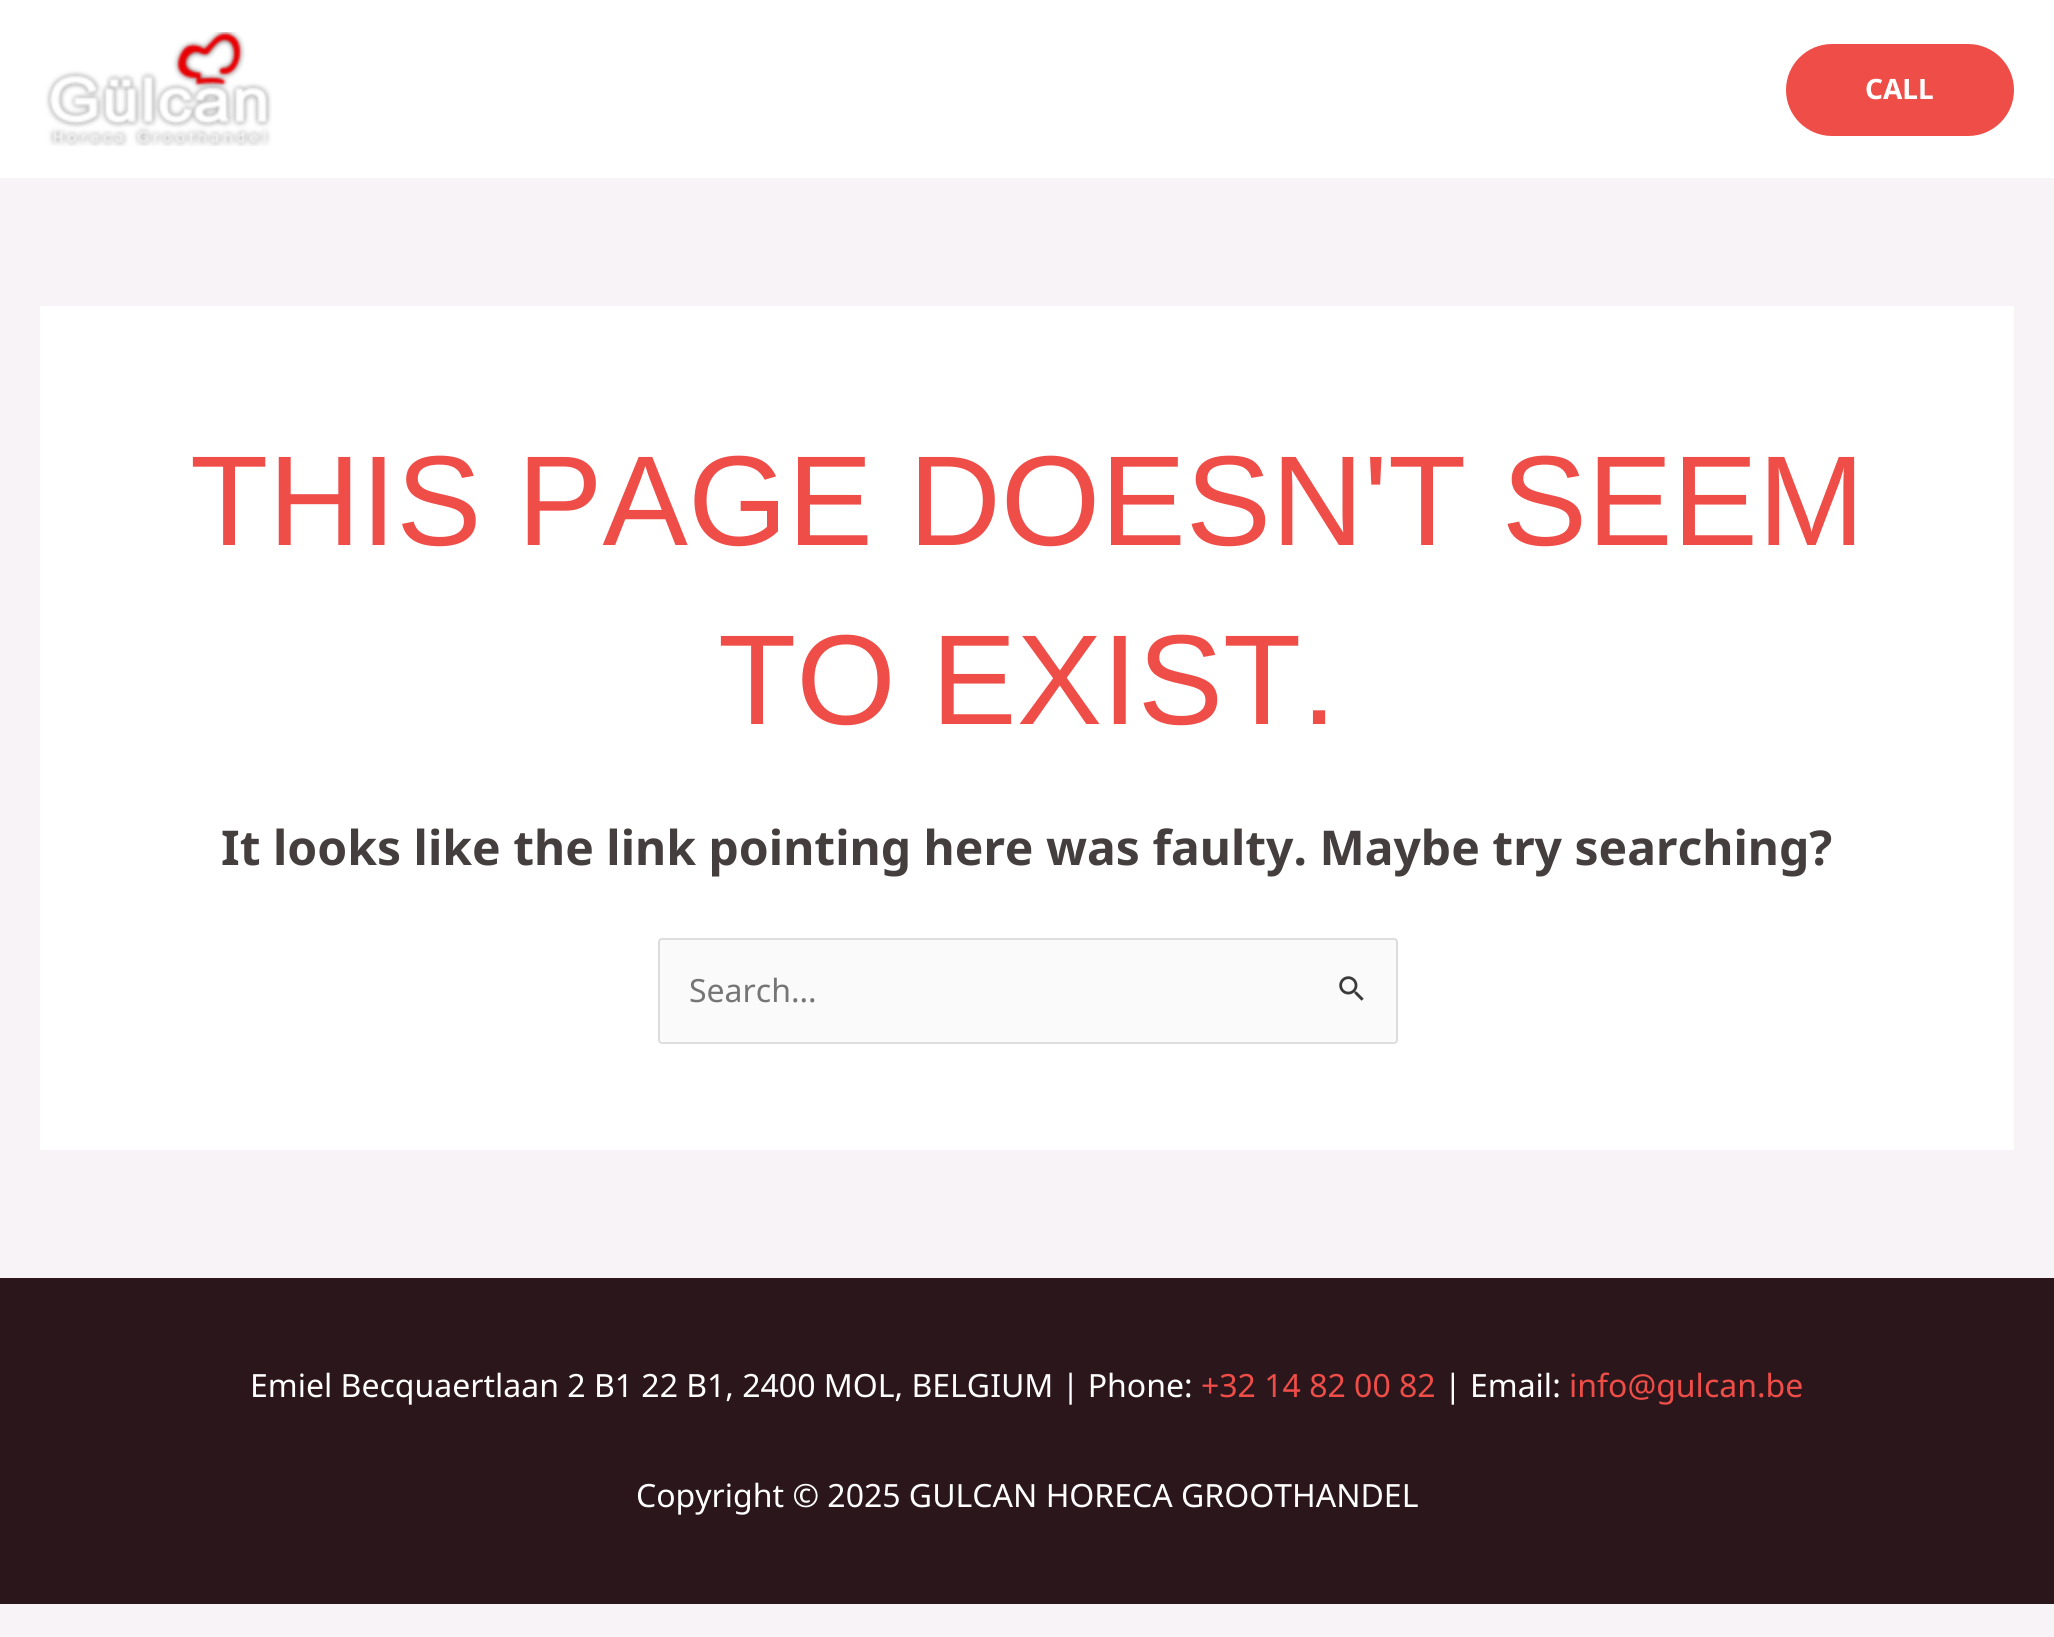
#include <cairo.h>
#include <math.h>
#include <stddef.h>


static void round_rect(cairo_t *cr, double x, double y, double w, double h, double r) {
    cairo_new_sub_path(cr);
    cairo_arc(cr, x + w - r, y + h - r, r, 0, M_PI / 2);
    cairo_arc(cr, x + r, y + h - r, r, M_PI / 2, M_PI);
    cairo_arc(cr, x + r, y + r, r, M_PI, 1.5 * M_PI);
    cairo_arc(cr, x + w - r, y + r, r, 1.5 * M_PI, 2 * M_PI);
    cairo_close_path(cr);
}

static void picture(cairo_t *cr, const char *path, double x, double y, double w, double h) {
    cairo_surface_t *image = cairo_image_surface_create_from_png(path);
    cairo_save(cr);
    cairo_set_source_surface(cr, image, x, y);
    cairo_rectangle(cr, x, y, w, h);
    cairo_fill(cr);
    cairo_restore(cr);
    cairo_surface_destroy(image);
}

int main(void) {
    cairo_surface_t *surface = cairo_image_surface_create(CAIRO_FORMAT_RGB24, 2054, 1637);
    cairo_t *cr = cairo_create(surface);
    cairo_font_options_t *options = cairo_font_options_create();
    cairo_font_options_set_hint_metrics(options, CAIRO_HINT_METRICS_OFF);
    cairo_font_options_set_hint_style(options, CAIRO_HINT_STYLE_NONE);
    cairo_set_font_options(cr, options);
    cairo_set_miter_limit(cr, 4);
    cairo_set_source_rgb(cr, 0.969, 0.953, 0.961);
    cairo_paint(cr);
    cairo_set_source_rgb(cr, 1, 1, 1);
    cairo_rectangle(cr, 0, 0, 2054, 178);
    cairo_fill(cr);
    picture(cr, "img1.png", 45, 32, 227, 114);
    cairo_set_source_rgb(cr, 0.937, 0.302, 0.282);
    round_rect(cr, 1786, 44, 228, 92, 46);
    cairo_fill(cr);
    cairo_select_font_face(cr, "Noto Sans", CAIRO_FONT_SLANT_NORMAL, CAIRO_FONT_WEIGHT_BOLD);
    cairo_set_font_size(cr, 28);
    cairo_set_source_rgb(cr, 1, 1, 1);
    cairo_move_to(cr, 1865, 99);
    cairo_show_text(cr, "CALL");
    cairo_rectangle(cr, 40, 306, 1974, 844);
    cairo_fill(cr);
    cairo_select_font_face(cr, "Liberation Sans", CAIRO_FONT_SLANT_NORMAL, CAIRO_FONT_WEIGHT_NORMAL);
    cairo_set_font_size(cr, 128);
    cairo_set_source_rgb(cr, 0.937, 0.302, 0.282);
    cairo_move_to(cr, 190, 545);
    cairo_show_text(cr, "THIS PAGE DOESN'T SEEM");
    cairo_move_to(cr, 718, 724);
    cairo_show_text(cr, "TO EXIST.");
    cairo_select_font_face(cr, "Noto Sans", CAIRO_FONT_SLANT_NORMAL, CAIRO_FONT_WEIGHT_BOLD);
    cairo_set_font_size(cr, 48);
    cairo_set_source_rgb(cr, 0.271, 0.243, 0.243);
    cairo_move_to(cr, 221, 865);
    cairo_show_text(cr, "It looks like the link pointing here was faulty. Maybe try searching?");
    cairo_set_source_rgb(cr, 0.98, 0.98, 0.98);
    round_rect(cr, 659, 939, 738, 104, 3);
    cairo_fill_preserve(cr);
    cairo_set_source_rgb(cr, 0.867, 0.867, 0.867);
    cairo_stroke(cr);
    cairo_select_font_face(cr, "Noto Sans", CAIRO_FONT_SLANT_NORMAL, CAIRO_FONT_WEIGHT_NORMAL);
    cairo_set_font_size(cr, 32);
    cairo_set_source_rgb(cr, 0.459, 0.459, 0.459);
    cairo_move_to(cr, 689, 1002);
    cairo_show_text(cr, "Search...");
    picture(cr, "img2.png", 1339, 976, 25, 25);
    cairo_set_source_rgb(cr, 0.169, 0.086, 0.106);
    cairo_rectangle(cr, 0, 1278, 2054, 326);
    cairo_fill(cr);
    cairo_set_source_rgb(cr, 1, 1, 1);
    cairo_move_to(cr, 250, 1397);
    cairo_show_text(cr, "Emiel Becquaertlaan 2 B1 22 B1, 2400 MOL, BELGIUM | Phone:");
    cairo_set_source_rgb(cr, 0.937, 0.302, 0.282);
    cairo_move_to(cr, 1201, 1397);
    cairo_show_text(cr, "+32 14 82 00 82");
    cairo_set_source_rgb(cr, 1, 1, 1);
    cairo_move_to(cr, 1444, 1397);
    cairo_show_text(cr, "| Email:");
    cairo_set_source_rgb(cr, 0.937, 0.302, 0.282);
    cairo_move_to(cr, 1569, 1397);
    cairo_show_text(cr, "info@gulcan.be");
    cairo_set_source_rgb(cr, 1, 1, 1);
    cairo_move_to(cr, 636, 1507);
    cairo_show_text(cr, "Copyright © 2025 GULCAN HORECA GROOTHANDEL");
    cairo_surface_write_to_png(surface, "page.png");
    cairo_font_options_destroy(options);
    cairo_destroy(cr);
    cairo_surface_destroy(surface);
    return 0;
}
